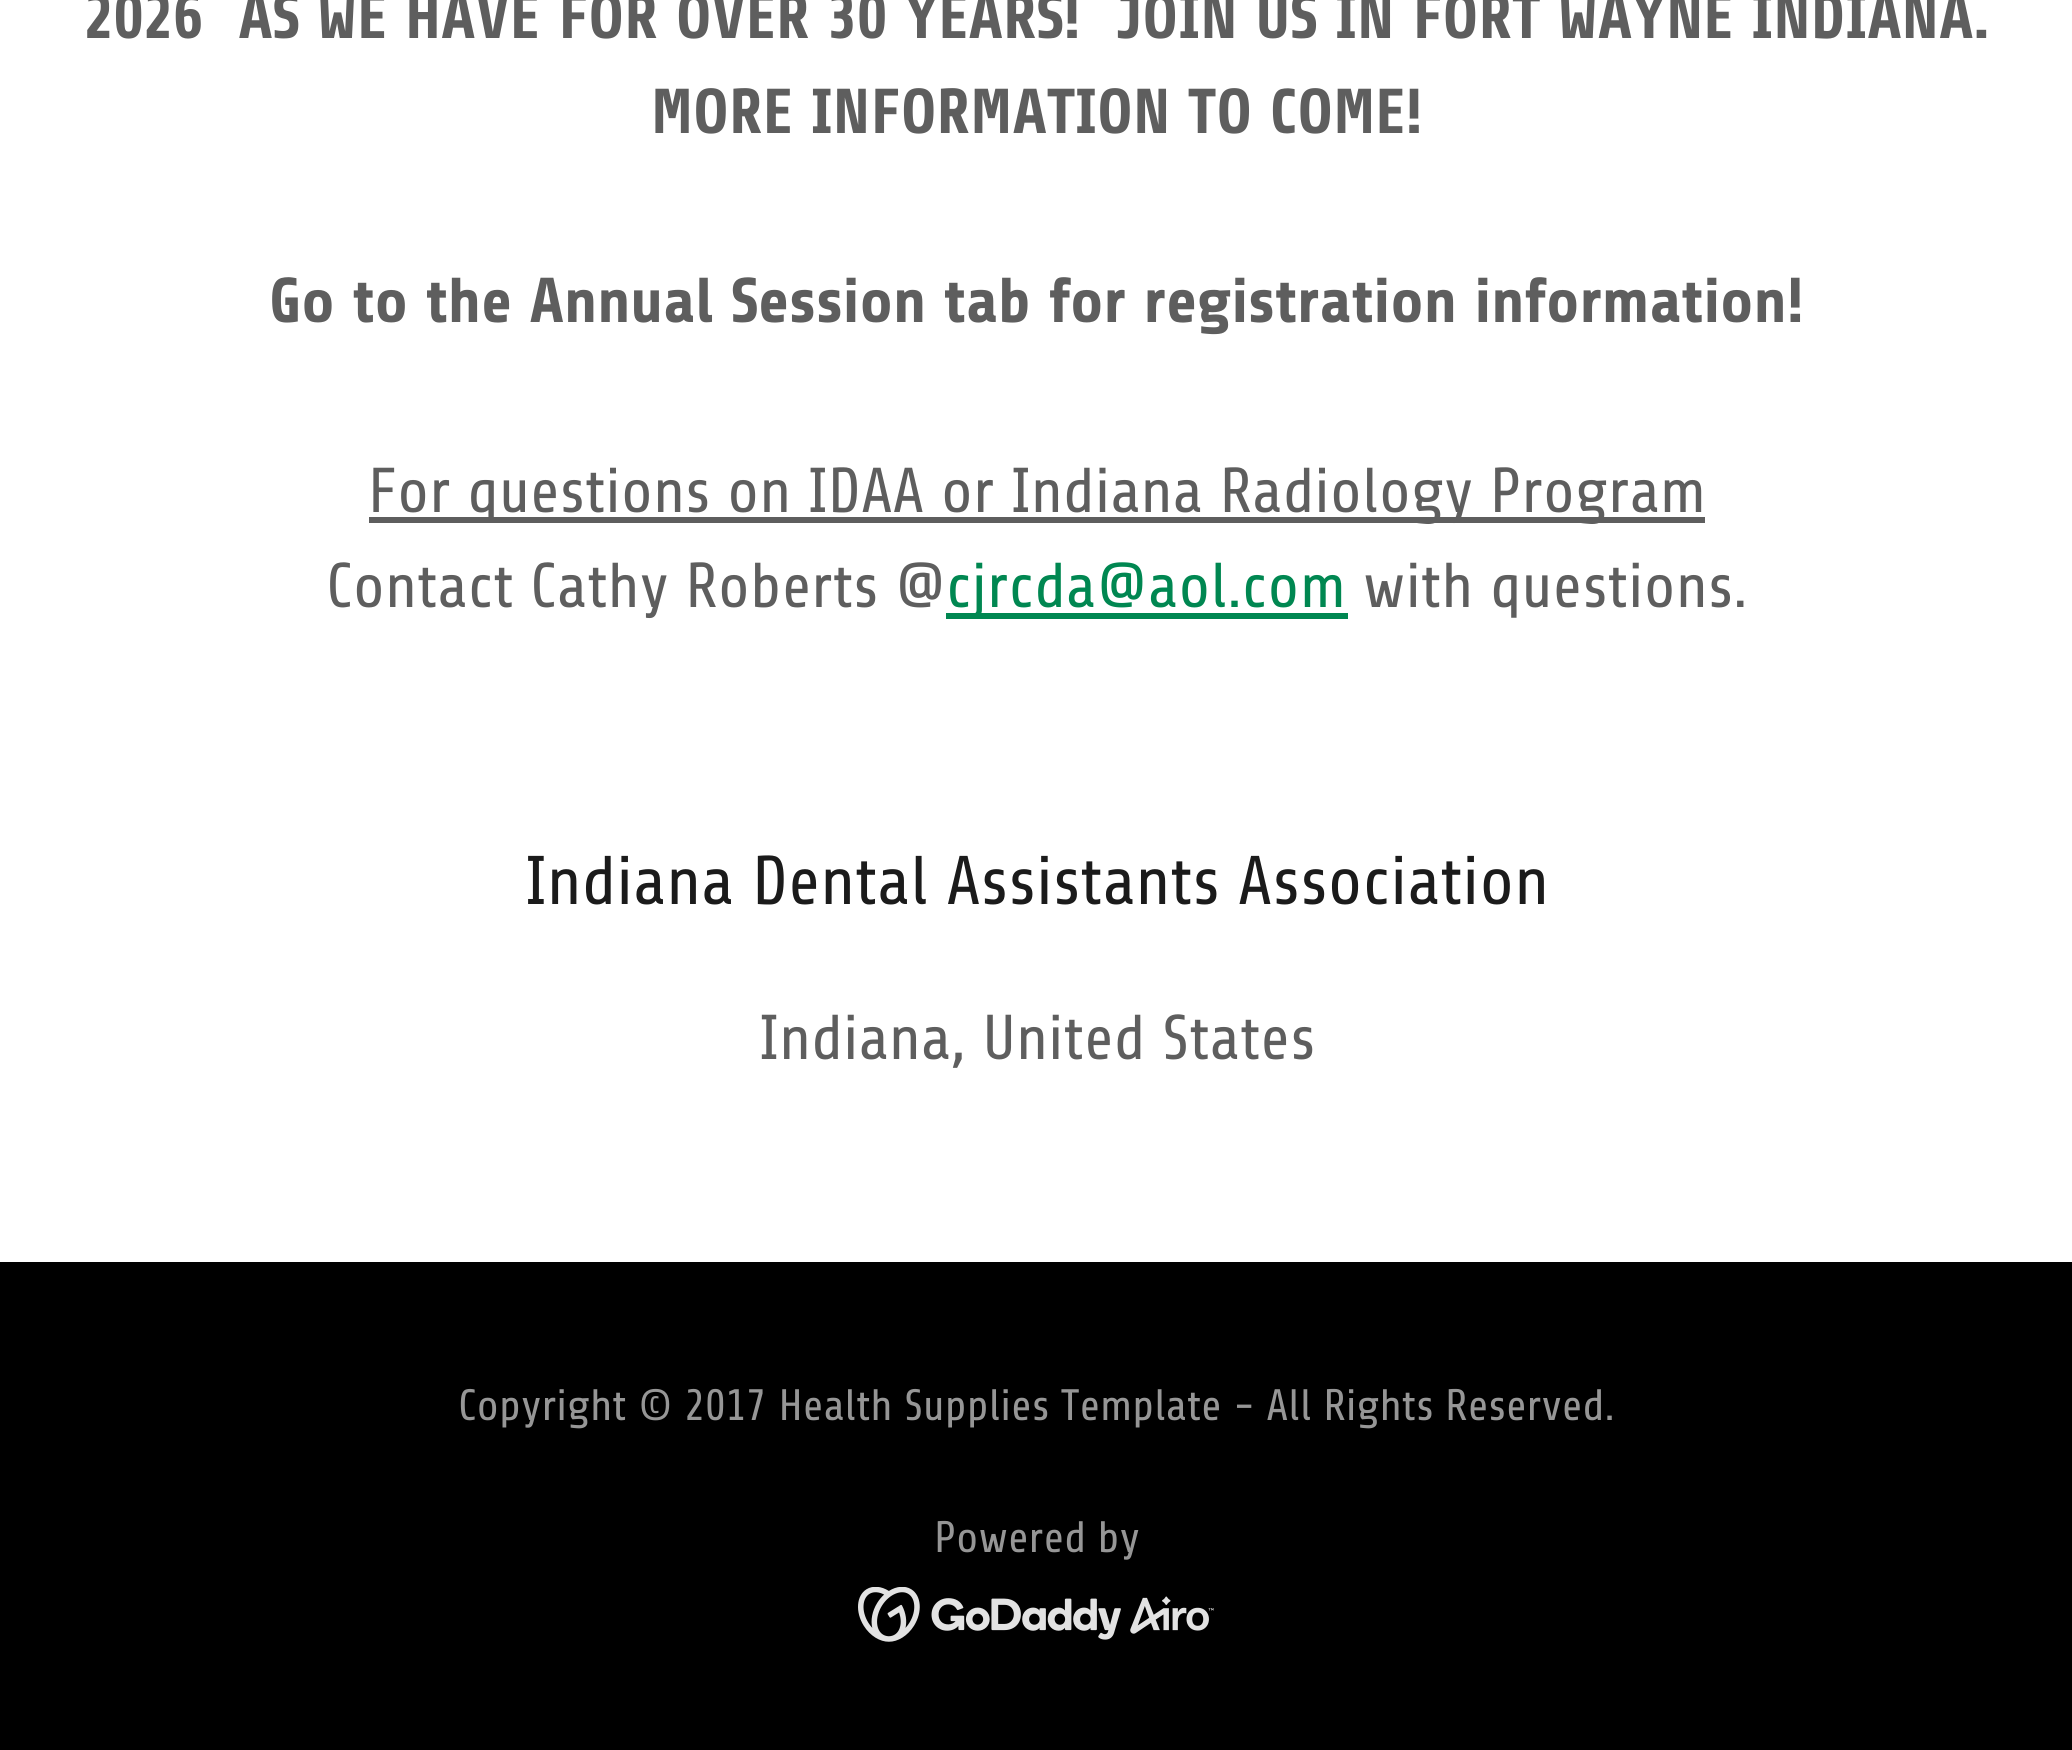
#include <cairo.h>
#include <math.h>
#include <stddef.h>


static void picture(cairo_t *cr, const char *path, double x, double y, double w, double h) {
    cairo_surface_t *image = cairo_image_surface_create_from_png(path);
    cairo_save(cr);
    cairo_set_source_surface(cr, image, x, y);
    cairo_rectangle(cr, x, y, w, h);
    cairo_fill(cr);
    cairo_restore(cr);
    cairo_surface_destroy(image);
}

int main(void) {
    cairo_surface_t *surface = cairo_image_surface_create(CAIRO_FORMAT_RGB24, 2072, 1750);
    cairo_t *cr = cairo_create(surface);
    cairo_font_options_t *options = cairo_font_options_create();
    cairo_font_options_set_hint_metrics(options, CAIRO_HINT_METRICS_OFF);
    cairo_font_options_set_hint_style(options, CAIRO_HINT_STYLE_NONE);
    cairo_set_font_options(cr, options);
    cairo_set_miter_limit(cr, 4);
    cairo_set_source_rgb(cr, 0, 0, 0);
    cairo_paint(cr);
    cairo_set_source_rgb(cr, 1, 1, 1);
    cairo_rectangle(cr, 0, 0, 2072, 1262);
    cairo_fill(cr);
    cairo_select_font_face(cr, "Share", CAIRO_FONT_SLANT_NORMAL, CAIRO_FONT_WEIGHT_BOLD);
    cairo_set_font_size(cr, 63.25);
    cairo_set_source_rgb(cr, 0.369, 0.369, 0.369);
    cairo_move_to(cr, 84, 38);
    cairo_show_text(cr, "2026  AS WE HAVE FOR OVER 30 YEARS!  JOIN US IN FORT WAYNE INDIANA.");
    cairo_move_to(cr, 651, 133);
    cairo_show_text(cr, "MORE INFORMATION TO COME!");
    cairo_move_to(cr, 269, 322);
    cairo_show_text(cr, "Go to the Annual Session tab for registration information!");
    cairo_rectangle(cr, 369, 517, 1336, 6);
    cairo_fill(cr);
    cairo_select_font_face(cr, "Share", CAIRO_FONT_SLANT_NORMAL, CAIRO_FONT_WEIGHT_NORMAL);
    cairo_move_to(cr, 368, 512);
    cairo_show_text(cr, "For questions on IDAA or Indiana Radiology Program");
    cairo_move_to(cr, 326, 607);
    cairo_show_text(cr, "Contact Cathy Roberts @");
    cairo_set_source_rgb(cr, 0, 0.529, 0.318);
    cairo_rectangle(cr, 946, 613, 402, 6);
    cairo_fill(cr);
    cairo_move_to(cr, 946, 607);
    cairo_show_text(cr, "cjrcda@aol.com");
    cairo_set_source_rgb(cr, 0.369, 0.369, 0.369);
    cairo_move_to(cr, 1363, 607);
    cairo_show_text(cr, "with questions.");
    cairo_set_font_size(cr, 68.75);
    cairo_set_source_rgb(cr, 0.106, 0.106, 0.106);
    cairo_move_to(cr, 525, 904);
    cairo_show_text(cr, "Indiana Dental Assistants Association");
    cairo_set_font_size(cr, 63.25);
    cairo_set_source_rgb(cr, 0.369, 0.369, 0.369);
    cairo_move_to(cr, 759, 1059);
    cairo_show_text(cr, "Indiana, United States");
    cairo_set_font_size(cr, 44);
    cairo_set_source_rgb(cr, 0.588, 0.588, 0.588);
    cairo_move_to(cr, 458, 1420);
    cairo_show_text(cr, "Copyright © 2017 Health Supplies Template - All Rights Reserved.");
    cairo_move_to(cr, 934, 1552);
    cairo_show_text(cr, "Powered by");
    picture(cr, "img1.png", 858, 1587, 356, 55);
    cairo_surface_write_to_png(surface, "page.png");
    cairo_font_options_destroy(options);
    cairo_destroy(cr);
    cairo_surface_destroy(surface);
    return 0;
}
